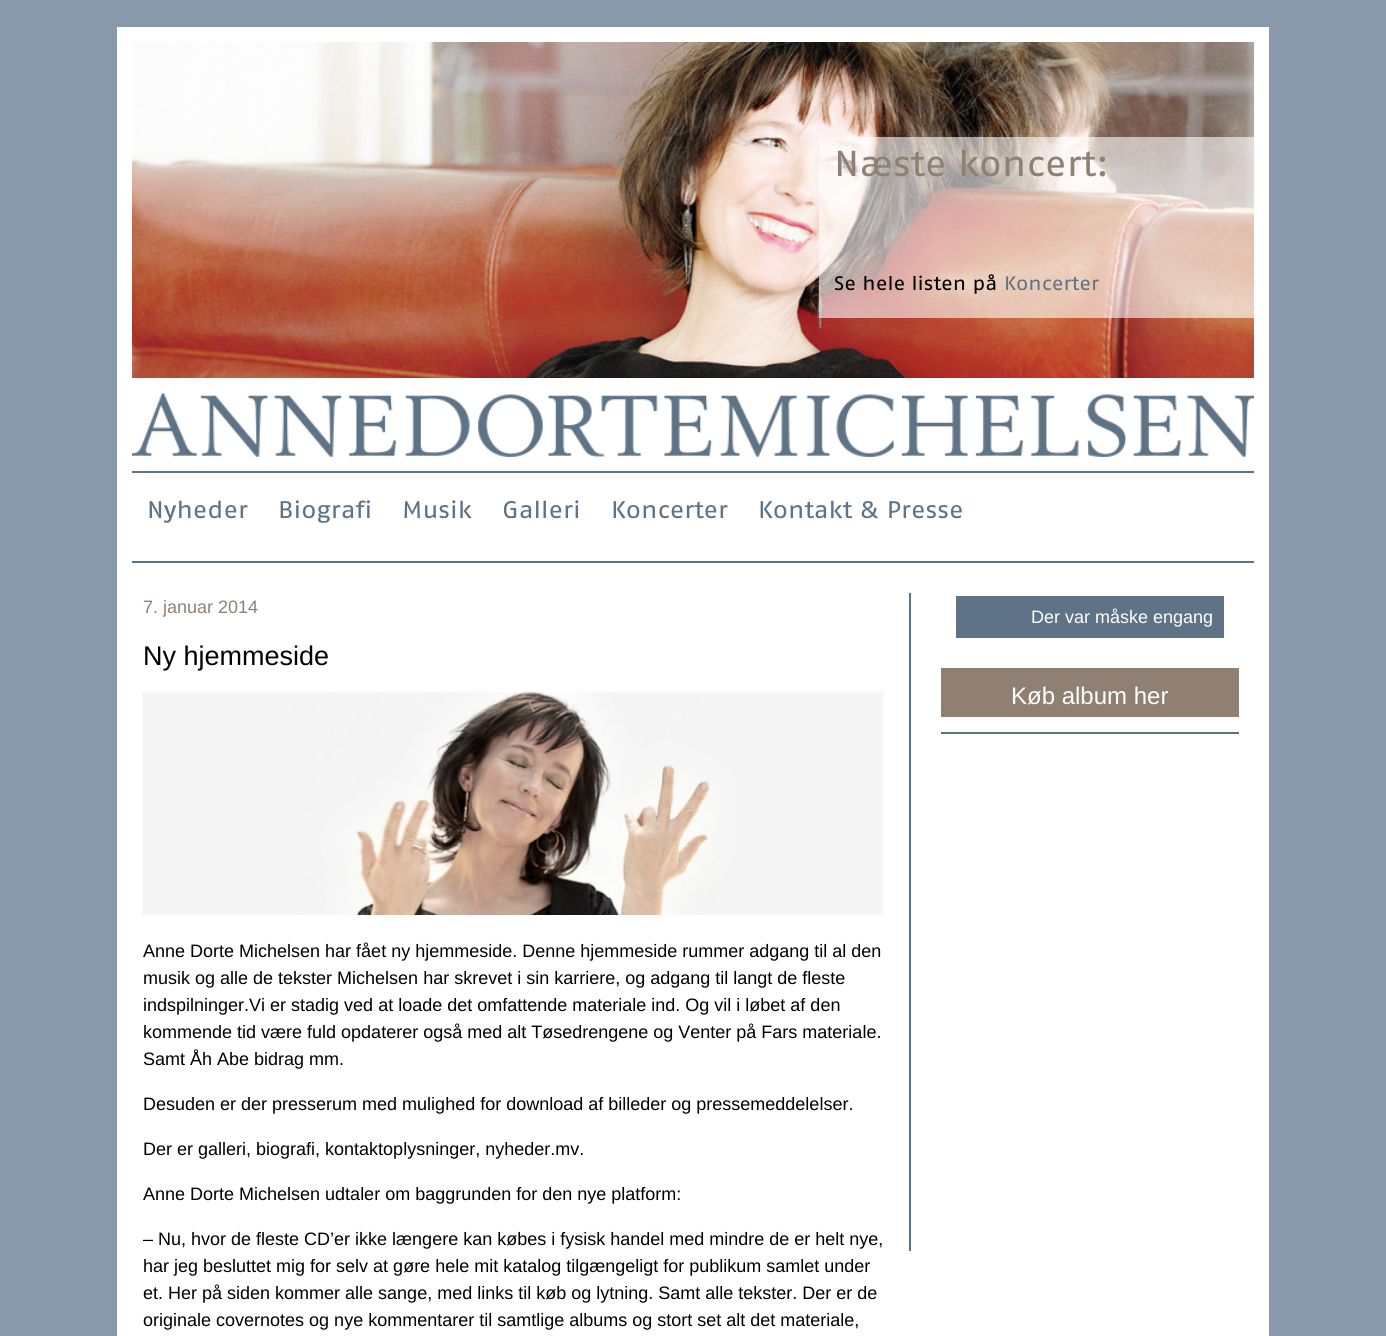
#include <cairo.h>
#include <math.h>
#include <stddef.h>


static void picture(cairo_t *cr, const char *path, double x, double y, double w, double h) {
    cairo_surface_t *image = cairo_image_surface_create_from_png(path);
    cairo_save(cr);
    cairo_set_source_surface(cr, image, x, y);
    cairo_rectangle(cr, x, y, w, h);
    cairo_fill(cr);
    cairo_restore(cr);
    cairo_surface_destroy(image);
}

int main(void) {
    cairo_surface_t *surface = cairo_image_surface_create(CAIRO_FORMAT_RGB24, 1386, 1336);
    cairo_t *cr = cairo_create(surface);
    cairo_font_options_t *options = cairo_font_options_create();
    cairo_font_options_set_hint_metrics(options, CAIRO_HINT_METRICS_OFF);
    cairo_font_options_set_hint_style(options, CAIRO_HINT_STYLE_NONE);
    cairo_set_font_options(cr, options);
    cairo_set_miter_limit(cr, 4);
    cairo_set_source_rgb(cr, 0.529, 0.6, 0.667);
    cairo_paint(cr);
    cairo_set_source_rgb(cr, 1, 1, 1);
    cairo_rectangle(cr, 117, 27, 1152, 1309);
    cairo_fill(cr);
    picture(cr, "img1.png", 132, 42, 1122, 336);
    cairo_set_source_rgba(cr, 1, 1, 1, 0.6);
    cairo_rectangle(cr, 819, 137, 435, 181);
    cairo_fill(cr);
    cairo_select_font_face(cr, "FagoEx", CAIRO_FONT_SLANT_NORMAL, CAIRO_FONT_WEIGHT_NORMAL);
    cairo_set_font_size(cr, 36);
    cairo_set_source_rgb(cr, 0.565, 0.502, 0.451);
    cairo_move_to(cr, 834, 176);
    cairo_show_text(cr, "Næste koncert:");
    cairo_set_font_size(cr, 19.5);
    cairo_set_source_rgb(cr, 0, 0, 0);
    cairo_move_to(cr, 834, 290);
    cairo_show_text(cr, "Se hele listen på");
    cairo_set_source_rgb(cr, 0.369, 0.455, 0.525);
    cairo_move_to(cr, 1004, 290);
    cairo_show_text(cr, "Koncerter");
    picture(cr, "img2.png", 132, 393, 1122, 64);
    cairo_rectangle(cr, 132, 561, 1122, 2);
    cairo_fill(cr);
    cairo_rectangle(cr, 132, 471, 1122, 2);
    cairo_fill(cr);
    cairo_set_font_size(cr, 24);
    cairo_move_to(cr, 147, 518);
    cairo_show_text(cr, "Nyheder");
    cairo_move_to(cr, 278, 518);
    cairo_show_text(cr, "Biografi");
    cairo_move_to(cr, 402, 518);
    cairo_show_text(cr, "Musik");
    cairo_move_to(cr, 502, 518);
    cairo_show_text(cr, "Galleri");
    cairo_move_to(cr, 611, 518);
    cairo_show_text(cr, "Koncerter");
    cairo_move_to(cr, 758, 518);
    cairo_show_text(cr, "Kontakt & Presse");
    cairo_select_font_face(cr, "Liberation Sans", CAIRO_FONT_SLANT_NORMAL, CAIRO_FONT_WEIGHT_NORMAL);
    cairo_set_font_size(cr, 18);
    cairo_set_source_rgb(cr, 0.565, 0.502, 0.451);
    cairo_move_to(cr, 143, 613);
    cairo_show_text(cr, "7. januar 2014");
    cairo_set_font_size(cr, 27);
    cairo_set_source_rgb(cr, 0, 0, 0);
    cairo_move_to(cr, 143, 665);
    cairo_show_text(cr, "Ny hjemmeside");
    picture(cr, "img3.png", 142, 691, 742, 224);
    cairo_set_font_size(cr, 18);
    cairo_move_to(cr, 143, 957);
    cairo_show_text(cr, "Anne Dorte Michelsen har fået ny hjemmeside. Denne hjemmeside rummer adgang til al den");
    cairo_move_to(cr, 143, 984);
    cairo_show_text(cr, "musik og alle de tekster Michelsen har skrevet i sin karriere, og adgang til langt de fleste");
    cairo_move_to(cr, 143, 1011);
    cairo_show_text(cr, "indspilninger.Vi er stadig ved at loade det omfattende materiale ind. Og vil i løbet af den");
    cairo_move_to(cr, 143, 1038);
    cairo_show_text(cr, "kommende tid være fuld opdaterer også med alt Tøsedrengene og Venter på Fars materiale.");
    cairo_move_to(cr, 143, 1065);
    cairo_show_text(cr, "Samt Åh Abe bidrag mm.");
    cairo_move_to(cr, 143, 1110);
    cairo_show_text(cr, "Desuden er der presserum med mulighed for download af billeder og pressemeddelelser.");
    cairo_move_to(cr, 143, 1155);
    cairo_show_text(cr, "Der er galleri, biografi, kontaktoplysninger, nyheder.mv.");
    cairo_move_to(cr, 143, 1200);
    cairo_show_text(cr, "Anne Dorte Michelsen udtaler om baggrunden for den nye platform:");
    cairo_move_to(cr, 143, 1245);
    cairo_show_text(cr, "– Nu, hvor de fleste CD’er ikke længere kan købes i fysisk handel med mindre de er helt nye,");
    cairo_move_to(cr, 143, 1272);
    cairo_show_text(cr, "har jeg besluttet mig for selv at gøre hele mit katalog tilgængeligt for publikum samlet under");
    cairo_move_to(cr, 143, 1299);
    cairo_show_text(cr, "et. Her på siden kommer alle sange, med links til køb og lytning. Samt alle tekster. Der er de");
    cairo_move_to(cr, 143, 1326);
    cairo_show_text(cr, "originale covernotes og nye kommentarer til samtlige albums og stort set alt det materiale,");
    cairo_set_source_rgb(cr, 0.369, 0.455, 0.525);
    cairo_rectangle(cr, 909, 593, 2, 658);
    cairo_fill(cr);
    cairo_rectangle(cr, 941, 732, 298, 2);
    cairo_fill(cr);
    cairo_rectangle(cr, 956, 596, 268, 42);
    cairo_fill(cr);
    cairo_set_source_rgb(cr, 1, 1, 1);
    cairo_move_to(cr, 1031, 623);
    cairo_show_text(cr, "Der var måske engang");
    cairo_set_source_rgb(cr, 0.565, 0.502, 0.451);
    cairo_rectangle(cr, 941, 668, 298, 49);
    cairo_fill(cr);
    cairo_set_font_size(cr, 24);
    cairo_set_source_rgb(cr, 1, 1, 1);
    cairo_move_to(cr, 1011, 704);
    cairo_show_text(cr, "Køb album her");
    cairo_surface_write_to_png(surface, "page.png");
    cairo_font_options_destroy(options);
    cairo_destroy(cr);
    cairo_surface_destroy(surface);
    return 0;
}
